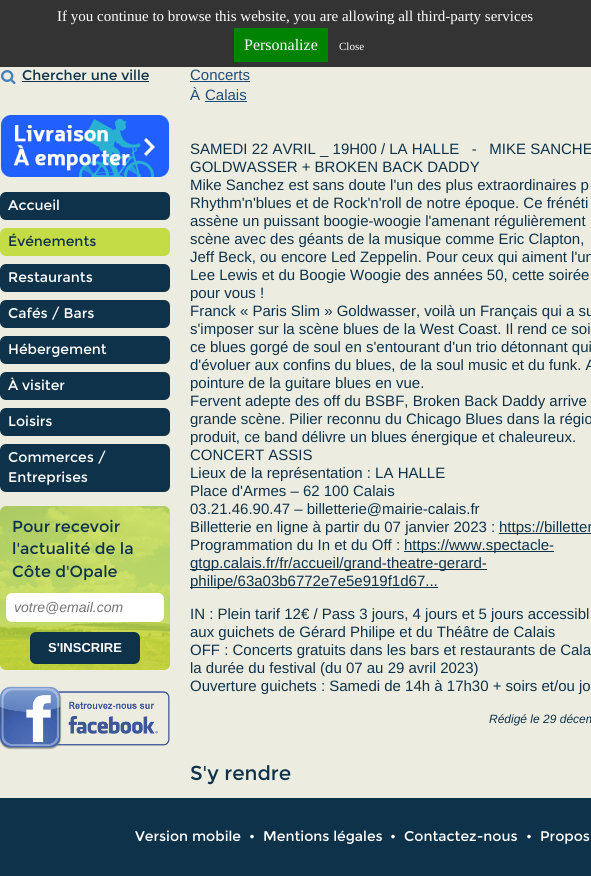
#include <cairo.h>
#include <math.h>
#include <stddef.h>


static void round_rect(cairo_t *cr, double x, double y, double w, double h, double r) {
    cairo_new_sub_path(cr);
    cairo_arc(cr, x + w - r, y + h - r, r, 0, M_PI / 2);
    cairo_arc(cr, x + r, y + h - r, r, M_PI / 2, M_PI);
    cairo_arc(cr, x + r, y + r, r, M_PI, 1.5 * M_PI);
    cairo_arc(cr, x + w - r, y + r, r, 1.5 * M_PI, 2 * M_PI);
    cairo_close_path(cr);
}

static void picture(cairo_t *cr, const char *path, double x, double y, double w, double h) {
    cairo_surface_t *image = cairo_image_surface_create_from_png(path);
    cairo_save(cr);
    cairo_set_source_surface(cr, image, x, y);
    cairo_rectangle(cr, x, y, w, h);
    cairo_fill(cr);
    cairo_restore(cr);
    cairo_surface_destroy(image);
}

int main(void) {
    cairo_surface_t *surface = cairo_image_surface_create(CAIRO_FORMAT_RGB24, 591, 876);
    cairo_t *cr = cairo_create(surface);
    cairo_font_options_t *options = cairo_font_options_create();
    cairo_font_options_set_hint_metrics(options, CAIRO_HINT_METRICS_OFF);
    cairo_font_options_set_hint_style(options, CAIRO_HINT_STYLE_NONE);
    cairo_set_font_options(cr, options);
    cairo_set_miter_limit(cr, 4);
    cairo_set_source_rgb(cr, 0.922, 0.929, 0.878);
    cairo_paint(cr);
    cairo_set_source_rgb(cr, 0.2, 0.2, 0.2);
    cairo_rectangle(cr, 0, 0, 591, 67);
    cairo_fill(cr);
    cairo_select_font_face(cr, "Liberation Serif", CAIRO_FONT_SLANT_NORMAL, CAIRO_FONT_WEIGHT_NORMAL);
    cairo_set_font_size(cr, 15);
    cairo_set_source_rgb(cr, 1, 1, 1);
    cairo_move_to(cr, 57, 21);
    cairo_show_text(cr, "If you continue to browse this website, you are allowing all third-party services");
    cairo_set_source_rgb(cr, 0, 0.514, 0);
    cairo_rectangle(cr, 234, 28, 94, 34);
    cairo_fill(cr);
    cairo_set_font_size(cr, 16);
    cairo_set_source_rgb(cr, 1, 1, 1);
    cairo_move_to(cr, 244, 50);
    cairo_show_text(cr, "Personalize");
    cairo_set_font_size(cr, 11);
    cairo_move_to(cr, 339, 50);
    cairo_show_text(cr, "Close");
    picture(cr, "img1.png", 1, 70, 15, 15);
    cairo_select_font_face(cr, "Montserrat", CAIRO_FONT_SLANT_NORMAL, CAIRO_FONT_WEIGHT_NORMAL);
    cairo_set_font_size(cr, 14);
    cairo_set_source_rgb(cr, 0.059, 0.196, 0.294);
    cairo_move_to(cr, 22, 80);
    cairo_show_text(cr, "Chercher une ville");
    cairo_rectangle(cr, 22, 81, 127, 1);
    cairo_fill(cr);
    picture(cr, "img2.png", 0, 114, 170, 64);
    round_rect(cr, 0, 192, 170, 28, 6);
    cairo_fill(cr);
    cairo_set_source_rgb(cr, 1, 1, 1);
    cairo_move_to(cr, 8, 210);
    cairo_show_text(cr, "Accueil");
    cairo_set_source_rgb(cr, 0.769, 0.867, 0.278);
    round_rect(cr, 0, 228, 170, 28, 6);
    cairo_fill(cr);
    cairo_set_source_rgb(cr, 0.059, 0.196, 0.294);
    cairo_move_to(cr, 8, 246);
    cairo_show_text(cr, "Événements");
    round_rect(cr, 0, 264, 170, 28, 6);
    cairo_fill(cr);
    cairo_set_source_rgb(cr, 1, 1, 1);
    cairo_move_to(cr, 8, 282);
    cairo_show_text(cr, "Restaurants");
    cairo_set_source_rgb(cr, 0.059, 0.196, 0.294);
    round_rect(cr, 0, 300, 170, 28, 6);
    cairo_fill(cr);
    cairo_set_source_rgb(cr, 1, 1, 1);
    cairo_move_to(cr, 8, 318);
    cairo_show_text(cr, "Cafés / Bars");
    cairo_set_source_rgb(cr, 0.059, 0.196, 0.294);
    round_rect(cr, 0, 336, 170, 28, 6);
    cairo_fill(cr);
    cairo_set_source_rgb(cr, 1, 1, 1);
    cairo_move_to(cr, 8, 354);
    cairo_show_text(cr, "Hébergement");
    cairo_set_source_rgb(cr, 0.059, 0.196, 0.294);
    round_rect(cr, 0, 372, 170, 28, 6);
    cairo_fill(cr);
    cairo_set_source_rgb(cr, 1, 1, 1);
    cairo_move_to(cr, 8, 390);
    cairo_show_text(cr, "À visiter");
    cairo_set_source_rgb(cr, 0.059, 0.196, 0.294);
    round_rect(cr, 0, 408, 170, 28, 6);
    cairo_fill(cr);
    cairo_set_source_rgb(cr, 1, 1, 1);
    cairo_move_to(cr, 8, 426);
    cairo_show_text(cr, "Loisirs");
    cairo_set_source_rgb(cr, 0.059, 0.196, 0.294);
    round_rect(cr, 0, 444, 170, 48, 6);
    cairo_fill(cr);
    cairo_set_source_rgb(cr, 1, 1, 1);
    cairo_move_to(cr, 8, 462);
    cairo_show_text(cr, "Commerces /");
    cairo_move_to(cr, 8, 482);
    cairo_show_text(cr, "Entreprises");
    cairo_set_source_rgb(cr, 0.769, 0.867, 0.278);
    round_rect(cr, 0, 506, 170, 164, 6);
    cairo_fill(cr);
    picture(cr, "img3.png", 0, 506, 170, 164);
    cairo_set_font_size(cr, 16);
    cairo_set_source_rgb(cr, 0.059, 0.196, 0.294);
    cairo_move_to(cr, 12, 532);
    cairo_show_text(cr, "Pour recevoir");
    cairo_move_to(cr, 12, 554);
    cairo_show_text(cr, "l'actualité de la");
    cairo_move_to(cr, 12, 577);
    cairo_show_text(cr, "Côte d'Opale");
    cairo_set_source_rgb(cr, 1, 1, 1);
    round_rect(cr, 6, 593, 158, 29, 6);
    cairo_fill(cr);
    cairo_select_font_face(cr, "Liberation Sans", CAIRO_FONT_SLANT_ITALIC, CAIRO_FONT_WEIGHT_NORMAL);
    cairo_set_font_size(cr, 14);
    cairo_set_source_rgb(cr, 0.459, 0.459, 0.459);
    cairo_move_to(cr, 14, 612);
    cairo_show_text(cr, "votre@email.com");
    cairo_set_source_rgb(cr, 0.059, 0.196, 0.294);
    round_rect(cr, 30, 632, 110, 32, 6);
    cairo_fill(cr);
    cairo_select_font_face(cr, "Liberation Sans", CAIRO_FONT_SLANT_NORMAL, CAIRO_FONT_WEIGHT_BOLD);
    cairo_set_font_size(cr, 13);
    cairo_set_source_rgb(cr, 1, 1, 1);
    cairo_move_to(cr, 48, 652);
    cairo_show_text(cr, "S'INSCRIRE");
    picture(cr, "img4.png", 0, 686, 170, 64);
    cairo_select_font_face(cr, "Liberation Sans", CAIRO_FONT_SLANT_NORMAL, CAIRO_FONT_WEIGHT_NORMAL);
    cairo_set_font_size(cr, 15);
    cairo_set_source_rgb(cr, 0.125, 0.298, 0.475);
    cairo_move_to(cr, 190, 80);
    cairo_show_text(cr, "Concerts");
    cairo_rectangle(cr, 190, 81, 60, 1);
    cairo_fill(cr);
    cairo_move_to(cr, 190, 100);
    cairo_show_text(cr, "À");
    cairo_move_to(cr, 205, 100);
    cairo_show_text(cr, "Calais");
    cairo_rectangle(cr, 205, 101, 42, 1);
    cairo_fill(cr);
    cairo_set_source_rgb(cr, 0.059, 0.196, 0.294);
    cairo_move_to(cr, 190, 154);
    cairo_show_text(cr, "SAMEDI 22 AVRIL _ 19H00 / LA HALLE   -   MIKE SANCHE");
    cairo_move_to(cr, 190, 172);
    cairo_show_text(cr, "GOLDWASSER + BROKEN BACK DADDY");
    cairo_move_to(cr, 190, 190);
    cairo_show_text(cr, "Mike Sanchez est sans doute l'un des plus extraordinaires p");
    cairo_move_to(cr, 190, 208);
    cairo_show_text(cr, "Rhythm'n'blues et de Rock'n'roll de notre époque. Ce frénéti");
    cairo_move_to(cr, 190, 226);
    cairo_show_text(cr, "assène un puissant boogie-woogie l'amenant régulièrement");
    cairo_move_to(cr, 190, 244);
    cairo_show_text(cr, "scène avec des géants de la musique comme Eric Clapton,");
    cairo_move_to(cr, 190, 262);
    cairo_show_text(cr, "Jeff Beck, ou encore Led Zeppelin. Pour ceux qui aiment l'un");
    cairo_move_to(cr, 190, 280);
    cairo_show_text(cr, "Lee Lewis et du Boogie Woogie des années 50, cette soirée");
    cairo_move_to(cr, 190, 298);
    cairo_show_text(cr, "pour vous !");
    cairo_move_to(cr, 190, 316);
    cairo_show_text(cr, "Franck « Paris Slim » Goldwasser, voilà un Français qui a su");
    cairo_move_to(cr, 190, 334);
    cairo_show_text(cr, "s'imposer sur la scène blues de la West Coast. Il rend ce soi");
    cairo_move_to(cr, 190, 352);
    cairo_show_text(cr, "ce blues gorgé de soul en s'entourant d'un trio détonnant qui");
    cairo_move_to(cr, 190, 370);
    cairo_show_text(cr, "d'évoluer aux confins du blues, de la soul music et du funk. A");
    cairo_move_to(cr, 190, 388);
    cairo_show_text(cr, "pointure de la guitare blues en vue.");
    cairo_move_to(cr, 190, 406);
    cairo_show_text(cr, "Fervent adepte des off du BSBF, Broken Back Daddy arrive");
    cairo_move_to(cr, 190, 424);
    cairo_show_text(cr, "grande scène. Pilier reconnu du Chicago Blues dans la régio");
    cairo_move_to(cr, 190, 442);
    cairo_show_text(cr, "produit, ce band délivre un blues énergique et chaleureux.");
    cairo_move_to(cr, 190, 460);
    cairo_show_text(cr, "CONCERT ASSIS");
    cairo_move_to(cr, 190, 478);
    cairo_show_text(cr, "Lieux de la représentation : LA HALLE");
    cairo_move_to(cr, 190, 496);
    cairo_show_text(cr, "Place d'Armes – 62 100 Calais");
    cairo_move_to(cr, 190, 514);
    cairo_show_text(cr, "03.21.46.90.47 – billetterie@mairie-calais.fr");
    cairo_move_to(cr, 190, 532);
    cairo_show_text(cr, "Billetterie en ligne à partir du 07 janvier 2023 :");
    cairo_rectangle(cr, 499, 533, 92, 1);
    cairo_fill(cr);
    cairo_move_to(cr, 499, 532);
    cairo_show_text(cr, "https://billetter");
    cairo_move_to(cr, 190, 550);
    cairo_show_text(cr, "Programmation du In et du Off :");
    cairo_rectangle(cr, 404, 551, 150, 1);
    cairo_fill(cr);
    cairo_move_to(cr, 404, 550);
    cairo_show_text(cr, "https://www.spectacle-");
    cairo_rectangle(cr, 190, 569, 297, 1);
    cairo_fill(cr);
    cairo_move_to(cr, 190, 568);
    cairo_show_text(cr, "gtgp.calais.fr/fr/accueil/grand-theatre-gerard-");
    cairo_rectangle(cr, 190, 587, 248, 1);
    cairo_fill(cr);
    cairo_move_to(cr, 190, 586);
    cairo_show_text(cr, "philipe/63a03b6772e7e5e919f1d67...");
    cairo_move_to(cr, 190, 619);
    cairo_show_text(cr, "IN : Plein tarif 12€ / Pass 3 jours, 4 jours et 5 jours accessibl");
    cairo_move_to(cr, 190, 637);
    cairo_show_text(cr, "aux guichets de Gérard Philipe et du Théâtre de Calais");
    cairo_move_to(cr, 190, 655);
    cairo_show_text(cr, "OFF : Concerts gratuits dans les bars et restaurants de Cala");
    cairo_move_to(cr, 190, 673);
    cairo_show_text(cr, "la durée du festival (du 07 au 29 avril 2023)");
    cairo_move_to(cr, 190, 691);
    cairo_show_text(cr, "Ouverture guichets : Samedi de 14h à 17h30 + soirs et/ou jo");
    cairo_select_font_face(cr, "Liberation Sans", CAIRO_FONT_SLANT_ITALIC, CAIRO_FONT_WEIGHT_NORMAL);
    cairo_set_font_size(cr, 12);
    cairo_move_to(cr, 489, 723);
    cairo_show_text(cr, "Rédigé le 29 décem");
    cairo_select_font_face(cr, "Montserrat", CAIRO_FONT_SLANT_NORMAL, CAIRO_FONT_WEIGHT_NORMAL);
    cairo_set_font_size(cr, 20);
    cairo_move_to(cr, 190, 780);
    cairo_show_text(cr, "S'y rendre");
    cairo_rectangle(cr, 0, 798, 591, 78);
    cairo_fill(cr);
    cairo_set_font_size(cr, 14);
    cairo_set_source_rgb(cr, 1, 1, 1);
    cairo_move_to(cr, 135, 841);
    cairo_show_text(cr, "Version mobile");
    cairo_move_to(cr, 249, 841);
    cairo_show_text(cr, "•");
    cairo_move_to(cr, 263, 841);
    cairo_show_text(cr, "Mentions légales");
    cairo_move_to(cr, 390, 841);
    cairo_show_text(cr, "•");
    cairo_move_to(cr, 404, 841);
    cairo_show_text(cr, "Contactez-nous");
    cairo_move_to(cr, 526, 841);
    cairo_show_text(cr, "•");
    cairo_move_to(cr, 540, 841);
    cairo_show_text(cr, "Propos");
    cairo_surface_write_to_png(surface, "page.png");
    cairo_font_options_destroy(options);
    cairo_destroy(cr);
    cairo_surface_destroy(surface);
    return 0;
}
